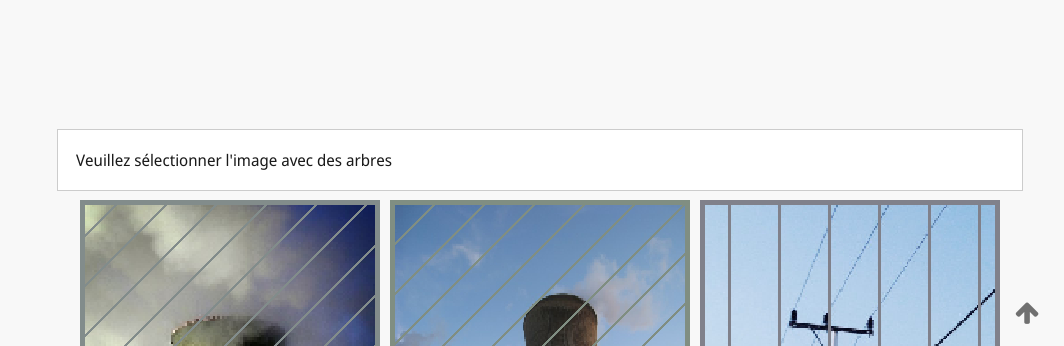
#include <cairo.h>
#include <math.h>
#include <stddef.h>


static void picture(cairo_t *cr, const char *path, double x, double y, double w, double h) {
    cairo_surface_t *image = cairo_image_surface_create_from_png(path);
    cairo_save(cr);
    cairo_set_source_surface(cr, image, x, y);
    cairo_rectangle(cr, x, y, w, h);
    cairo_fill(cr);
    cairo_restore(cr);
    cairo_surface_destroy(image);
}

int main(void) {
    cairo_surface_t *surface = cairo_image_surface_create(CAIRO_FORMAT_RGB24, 1064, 346);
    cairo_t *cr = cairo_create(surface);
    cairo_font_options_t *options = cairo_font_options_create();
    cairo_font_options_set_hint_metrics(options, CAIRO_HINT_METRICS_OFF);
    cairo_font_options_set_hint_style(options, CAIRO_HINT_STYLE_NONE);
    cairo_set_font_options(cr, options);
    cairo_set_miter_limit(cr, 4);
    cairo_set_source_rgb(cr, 0.969, 0.969, 0.969);
    cairo_paint(cr);
    cairo_set_source_rgb(cr, 1, 1, 1);
    cairo_rectangle(cr, 57.5, 129.5, 965, 61);
    cairo_fill_preserve(cr);
    cairo_set_source_rgb(cr, 0.8, 0.8, 0.8);
    cairo_set_line_width(cr, 1);
    cairo_stroke(cr);
    cairo_select_font_face(cr, "Noto Sans Display", CAIRO_FONT_SLANT_NORMAL, CAIRO_FONT_WEIGHT_NORMAL);
    cairo_set_font_size(cr, 16);
    cairo_set_source_rgb(cr, 0.102, 0.102, 0.102);
    cairo_move_to(cr, 76, 166);
    cairo_show_text(cr, "Veuillez sélectionner l'image avec des arbres");
    picture(cr, "img1.png", 80, 200, 300, 146);
    picture(cr, "img2.png", 390, 200, 300, 146);
    picture(cr, "img3.png", 700, 200, 300, 146);
    picture(cr, "img4.png", 1015, 302, 24, 22);
    cairo_surface_write_to_png(surface, "page.png");
    cairo_font_options_destroy(options);
    cairo_destroy(cr);
    cairo_surface_destroy(surface);
    return 0;
}
